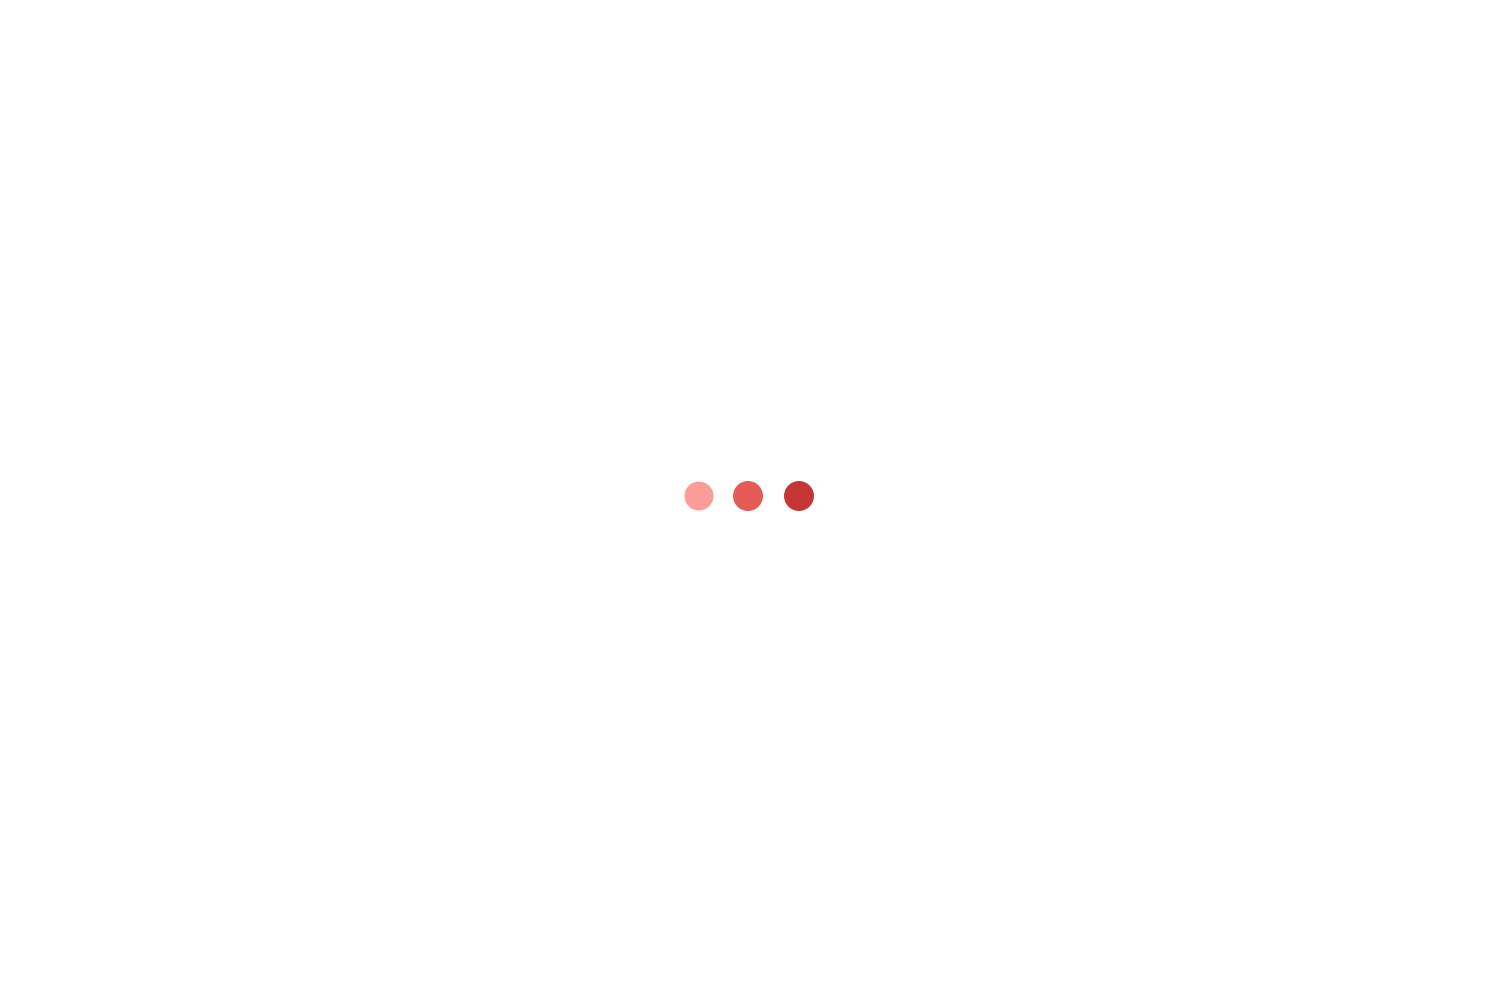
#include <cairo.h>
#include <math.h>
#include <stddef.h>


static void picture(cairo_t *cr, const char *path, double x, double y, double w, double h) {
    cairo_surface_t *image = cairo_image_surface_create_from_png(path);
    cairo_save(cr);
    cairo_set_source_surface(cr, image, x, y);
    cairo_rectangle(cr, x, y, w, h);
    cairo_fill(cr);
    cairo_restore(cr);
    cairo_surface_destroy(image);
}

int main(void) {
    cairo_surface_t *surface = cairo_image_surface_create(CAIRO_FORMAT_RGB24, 1499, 1002);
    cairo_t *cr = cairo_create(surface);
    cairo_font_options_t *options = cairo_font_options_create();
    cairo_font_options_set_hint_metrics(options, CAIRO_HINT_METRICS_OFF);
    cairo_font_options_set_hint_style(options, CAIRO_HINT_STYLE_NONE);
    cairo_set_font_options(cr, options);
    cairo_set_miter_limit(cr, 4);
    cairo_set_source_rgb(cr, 1, 1, 1);
    cairo_paint(cr);
    picture(cr, "img1.png", 655, 12, 187, 51);
    picture(cr, "img2.png", 1371, 30, 33, 33);
    picture(cr, "img3.png", 0, 105, 1499, 529);
    cairo_set_source_rgb(cr, 0.988, 0.612, 0.596);
    cairo_arc(cr, 699, 496, 14.5, 0, 2 * M_PI);
    cairo_fill(cr);
    cairo_set_source_rgb(cr, 0.894, 0.353, 0.333);
    cairo_arc(cr, 748, 496, 15, 0, 2 * M_PI);
    cairo_fill(cr);
    cairo_set_source_rgb(cr, 0.769, 0.212, 0.196);
    cairo_arc(cr, 799, 496, 15, 0, 2 * M_PI);
    cairo_fill(cr);
    picture(cr, "img4.png", 866, 511, 32, 31);
    picture(cr, "img5.png", 868, 672, 23, 23);
    picture(cr, "img6.png", 0, 850, 1499, 152);
    picture(cr, "img7.png", 388, 880, 224, 122);
    cairo_surface_write_to_png(surface, "page.png");
    cairo_font_options_destroy(options);
    cairo_destroy(cr);
    cairo_surface_destroy(surface);
    return 0;
}
